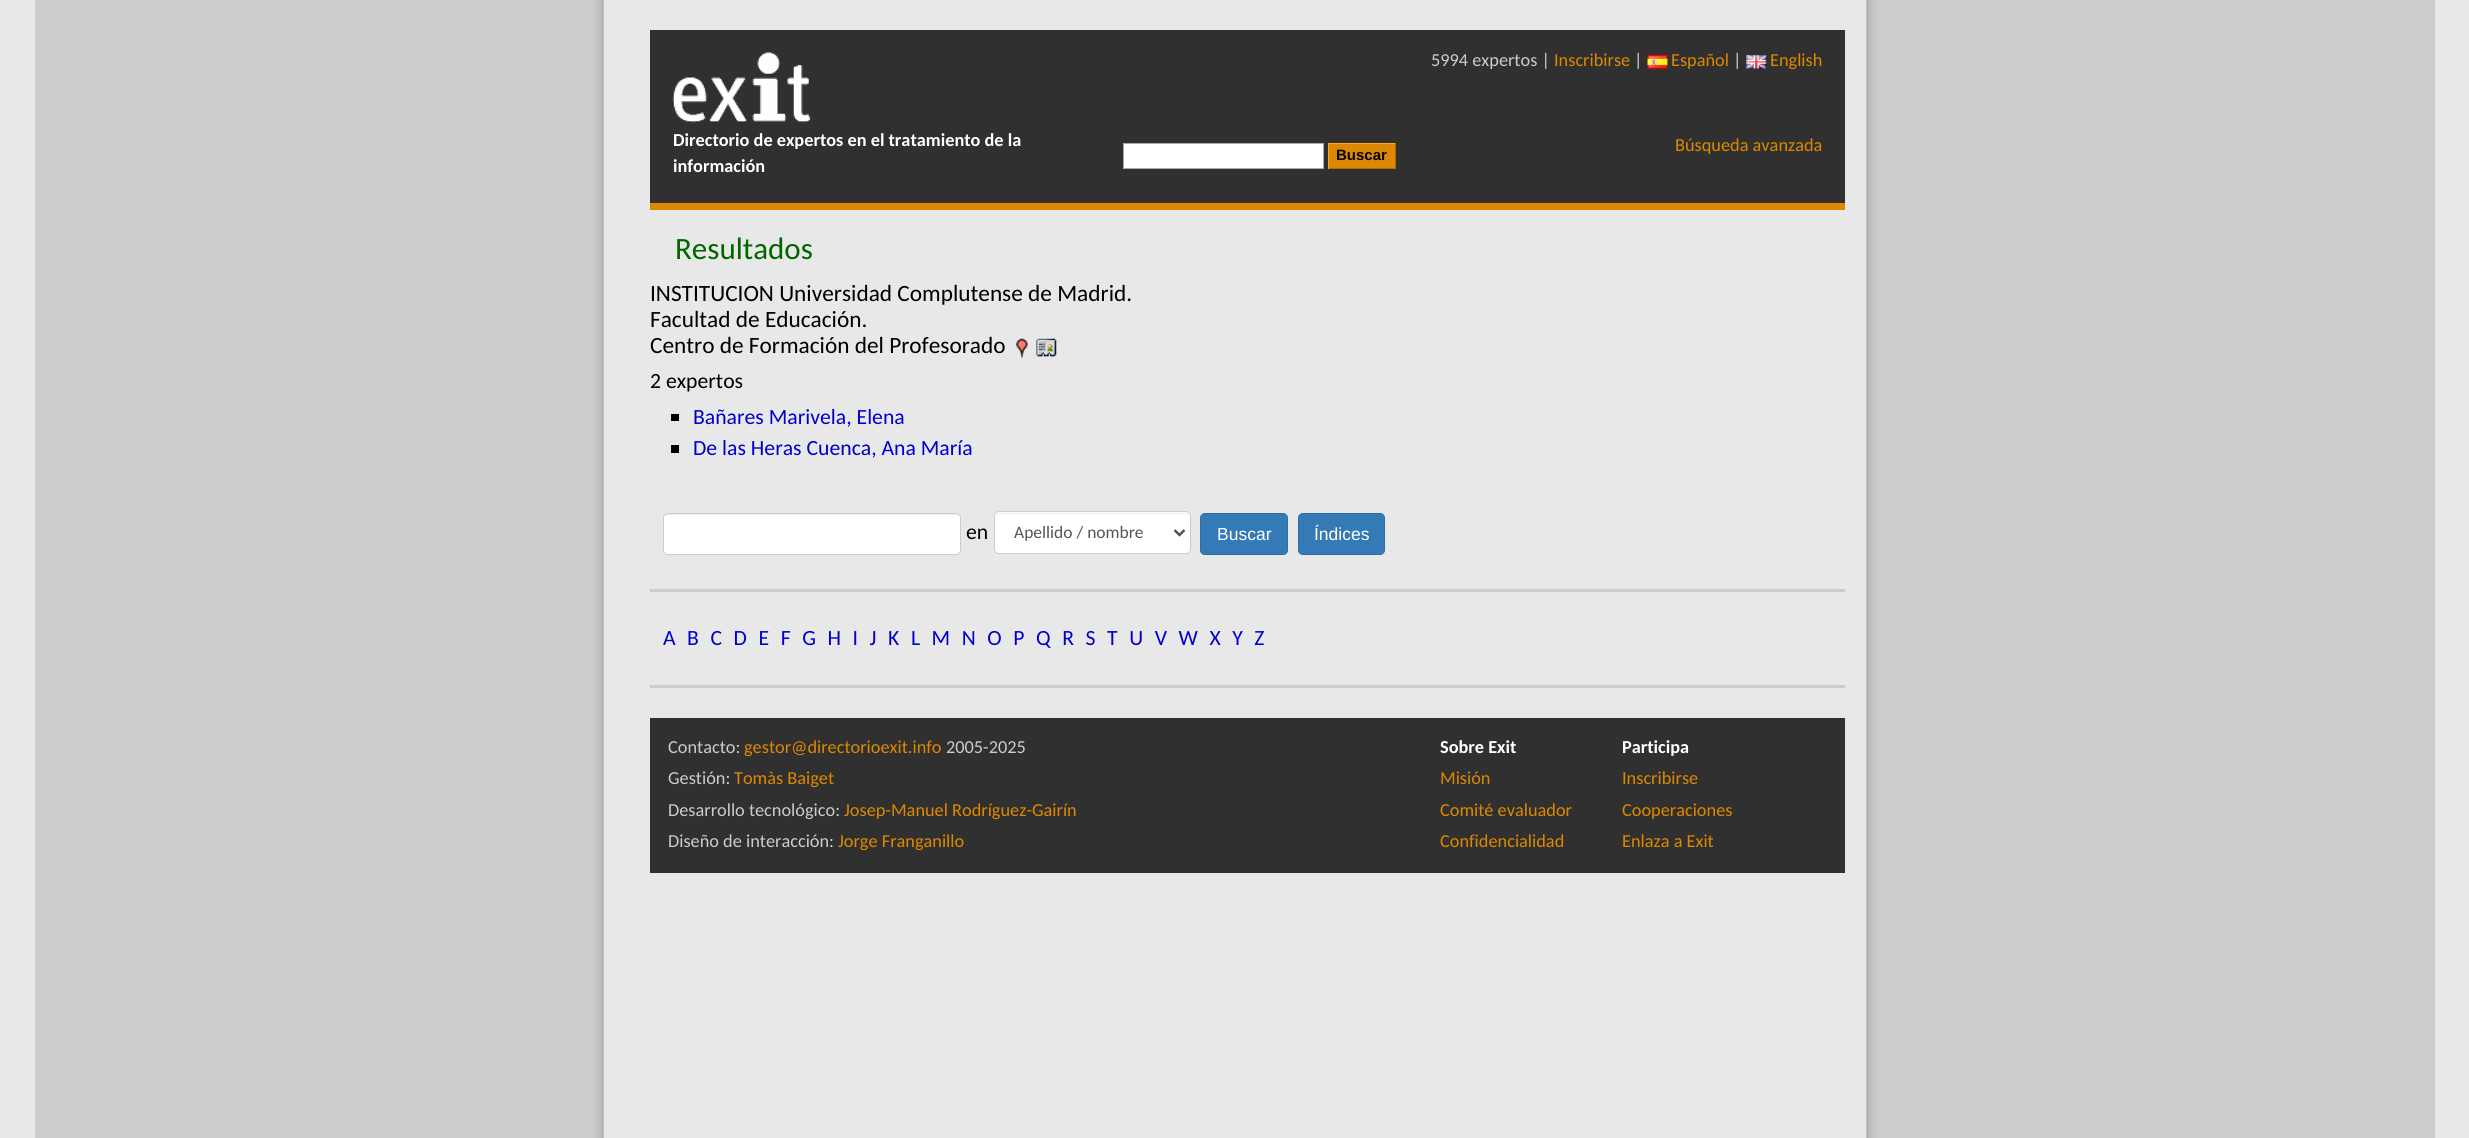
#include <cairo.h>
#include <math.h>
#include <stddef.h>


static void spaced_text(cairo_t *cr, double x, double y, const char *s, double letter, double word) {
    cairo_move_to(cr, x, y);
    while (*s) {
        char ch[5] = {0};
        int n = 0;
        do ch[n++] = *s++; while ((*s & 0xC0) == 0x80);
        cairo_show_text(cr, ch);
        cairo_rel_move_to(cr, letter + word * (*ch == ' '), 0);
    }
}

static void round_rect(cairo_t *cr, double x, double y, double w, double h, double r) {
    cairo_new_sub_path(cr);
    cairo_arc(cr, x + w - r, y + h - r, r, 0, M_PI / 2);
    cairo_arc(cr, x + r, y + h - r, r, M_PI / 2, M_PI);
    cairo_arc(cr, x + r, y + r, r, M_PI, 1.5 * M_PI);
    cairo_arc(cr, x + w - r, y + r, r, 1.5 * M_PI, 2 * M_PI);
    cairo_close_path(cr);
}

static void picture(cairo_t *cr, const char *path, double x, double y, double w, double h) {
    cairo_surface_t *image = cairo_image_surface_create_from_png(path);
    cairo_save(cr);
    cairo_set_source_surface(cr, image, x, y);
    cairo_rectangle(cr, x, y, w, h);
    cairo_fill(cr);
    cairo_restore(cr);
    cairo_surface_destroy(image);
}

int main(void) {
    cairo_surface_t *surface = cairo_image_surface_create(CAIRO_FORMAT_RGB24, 2469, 1138);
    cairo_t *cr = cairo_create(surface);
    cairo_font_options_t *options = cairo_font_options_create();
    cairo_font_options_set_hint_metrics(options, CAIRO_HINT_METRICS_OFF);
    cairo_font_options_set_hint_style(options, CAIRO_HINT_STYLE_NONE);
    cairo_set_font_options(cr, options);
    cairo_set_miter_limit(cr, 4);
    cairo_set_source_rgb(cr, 0.91, 0.91, 0.91);
    cairo_paint(cr);
    picture(cr, "img1.png", 35, 0, 2400, 1138);
    cairo_set_source_rgb(cr, 0.188, 0.188, 0.188);
    cairo_rectangle(cr, 650, 30, 1195, 173);
    cairo_fill(cr);
    cairo_set_source_rgb(cr, 0.867, 0.533, 0);
    cairo_rectangle(cr, 650, 203, 1195, 7);
    cairo_fill(cr);
    picture(cr, "img2.png", 672, 52, 139, 71);
    cairo_select_font_face(cr, "Carlito", CAIRO_FONT_SLANT_NORMAL, CAIRO_FONT_WEIGHT_BOLD);
    cairo_set_font_size(cr, 18.3);
    cairo_set_source_rgb(cr, 1, 1, 1);
    cairo_move_to(cr, 673, 146);
    cairo_show_text(cr, "Directorio de expertos en el tratamiento de la");
    cairo_move_to(cr, 673, 172);
    cairo_show_text(cr, "información");
    cairo_rectangle(cr, 1123.5, 143.5, 200, 25);
    cairo_fill_preserve(cr);
    cairo_set_source_rgb(cr, 0.667, 0.667, 0.667);
    cairo_set_line_width(cr, 1);
    cairo_stroke(cr);
    cairo_set_source_rgb(cr, 0.867, 0.533, 0);
    cairo_rectangle(cr, 1329, 144, 66, 24);
    cairo_fill(cr);
    cairo_set_source_rgb(cr, 1, 0.667, 0.133);
    cairo_rectangle(cr, 1328, 143, 68, 1);
    cairo_fill(cr);
    cairo_set_source_rgb(cr, 0.733, 0.4, 0);
    cairo_rectangle(cr, 1395, 143, 1, 26);
    cairo_fill(cr);
    cairo_rectangle(cr, 1328, 168, 68, 1);
    cairo_fill(cr);
    cairo_set_source_rgb(cr, 1, 0.667, 0.133);
    cairo_rectangle(cr, 1328, 143, 1, 26);
    cairo_fill(cr);
    cairo_select_font_face(cr, "Liberation Sans", CAIRO_FONT_SLANT_NORMAL, CAIRO_FONT_WEIGHT_BOLD);
    cairo_set_font_size(cr, 15);
    cairo_set_source_rgb(cr, 0, 0, 0);
    cairo_move_to(cr, 1336, 160);
    cairo_show_text(cr, "Buscar");
    cairo_select_font_face(cr, "Carlito", CAIRO_FONT_SLANT_NORMAL, CAIRO_FONT_WEIGHT_NORMAL);
    cairo_set_font_size(cr, 18.3);
    cairo_set_source_rgb(cr, 0.8, 0.8, 0.8);
    cairo_move_to(cr, 1431, 66);
    cairo_show_text(cr, "5994 expertos |");
    cairo_set_source_rgb(cr, 0.867, 0.533, 0);
    cairo_move_to(cr, 1554, 66);
    cairo_show_text(cr, "Inscribirse");
    cairo_set_source_rgb(cr, 0.8, 0.8, 0.8);
    cairo_move_to(cr, 1634, 66);
    cairo_show_text(cr, "|");
    picture(cr, "img3.png", 1647, 55, 21, 14);
    cairo_set_source_rgb(cr, 0.867, 0.533, 0);
    cairo_move_to(cr, 1671, 66);
    cairo_show_text(cr, "Español");
    cairo_set_source_rgb(cr, 0.8, 0.8, 0.8);
    cairo_move_to(cr, 1733, 66);
    cairo_show_text(cr, "|");
    picture(cr, "img4.png", 1746, 55, 21, 14);
    cairo_set_source_rgb(cr, 0.867, 0.533, 0);
    cairo_move_to(cr, 1770, 66);
    cairo_show_text(cr, "English");
    cairo_move_to(cr, 1675, 151);
    cairo_show_text(cr, "Búsqueda avanzada");
    cairo_set_font_size(cr, 31);
    cairo_set_source_rgb(cr, 0, 0.4, 0);
    cairo_move_to(cr, 675, 259);
    cairo_show_text(cr, "Resultados");
    cairo_set_font_size(cr, 23.3);
    cairo_set_source_rgb(cr, 0, 0, 0);
    cairo_move_to(cr, 650, 301);
    cairo_show_text(cr, "INSTITUCION Universidad Complutense de Madrid.");
    cairo_move_to(cr, 650, 327);
    cairo_show_text(cr, "Facultad de Educación.");
    cairo_move_to(cr, 650, 353);
    cairo_show_text(cr, "Centro de Formación del Profesorado");
    picture(cr, "img5.png", 1016, 338, 12, 20);
    picture(cr, "img6.png", 1036, 338, 21, 19);
    cairo_set_font_size(cr, 21.7);
    cairo_move_to(cr, 650, 388);
    cairo_show_text(cr, "2 expertos");
    cairo_rectangle(cr, 671, 414, 8, 7);
    cairo_fill(cr);
    cairo_set_source_rgb(cr, 0, 0, 0.8);
    cairo_move_to(cr, 693, 424);
    cairo_show_text(cr, "Bañares Marivela, Elena");
    cairo_set_source_rgb(cr, 0, 0, 0);
    cairo_rectangle(cr, 671, 445, 8, 8);
    cairo_fill(cr);
    cairo_set_source_rgb(cr, 0, 0, 0.8);
    cairo_move_to(cr, 693, 455);
    cairo_show_text(cr, "De las Heras Cuenca, Ana María");
    cairo_set_source_rgb(cr, 1, 1, 1);
    round_rect(cr, 663, 513, 298, 42, 5);
    cairo_fill(cr);
    cairo_set_source_rgb(cr, 0.925, 0.925, 0.925);
    cairo_new_path(cr);
    cairo_move_to(cr, 668, 515);
    cairo_line_to(cr, 956, 515);
    cairo_curve_to(cr, 958, 515, 960, 517, 960, 519);
    cairo_curve_to(cr, 960, 516, 959, 514, 956, 514);
    cairo_line_to(cr, 668, 514);
    cairo_curve_to(cr, 665, 514, 664, 516, 664, 519);
    cairo_curve_to(cr, 664, 517, 665, 515, 668, 515);
    cairo_close_path(cr);
    cairo_fill(cr);
    round_rect(cr, 663.5, 513.5, 297, 41, 4.5);
    cairo_set_source_rgb(cr, 0.8, 0.8, 0.8);
    cairo_stroke(cr);
    cairo_set_source_rgb(cr, 0, 0, 0);
    cairo_move_to(cr, 966, 539);
    cairo_show_text(cr, "en");
    cairo_set_source_rgb(cr, 1, 1, 1);
    round_rect(cr, 994, 511, 197, 43, 5);
    cairo_fill(cr);
    cairo_set_source_rgb(cr, 0.925, 0.925, 0.925);
    cairo_new_path(cr);
    cairo_move_to(cr, 999, 514);
    cairo_line_to(cr, 1186, 514);
    cairo_curve_to(cr, 1188, 514, 1190, 515, 1190, 518);
    cairo_line_to(cr, 1190, 517);
    cairo_curve_to(cr, 1190, 515, 1188, 513, 1186, 513);
    cairo_line_to(cr, 999, 513);
    cairo_curve_to(cr, 997, 513, 995, 515, 995, 517);
    cairo_line_to(cr, 995, 518);
    cairo_curve_to(cr, 995, 515, 997, 514, 999, 514);
    cairo_close_path(cr);
    cairo_fill(cr);
    round_rect(cr, 994.5, 511.5, 196, 42, 4.5);
    cairo_set_source_rgb(cr, 0.8, 0.8, 0.8);
    cairo_stroke(cr);
    cairo_new_path(cr);
    cairo_move_to(cr, 1174.5, 530);
    cairo_line_to(cr, 1179.5, 535);
    cairo_line_to(cr, 1184.5, 530);
    cairo_set_source_rgb(cr, 0.333, 0.333, 0.333);
    cairo_set_line_width(cr, 2.5);
    cairo_stroke(cr);
    cairo_set_font_size(cr, 17.5);
    cairo_move_to(cr, 1014, 538);
    cairo_show_text(cr, "Apellido / nombre");
    cairo_set_source_rgb(cr, 0.2, 0.478, 0.718);
    round_rect(cr, 1200.5, 513.5, 87, 41, 4.5);
    cairo_fill_preserve(cr);
    cairo_set_source_rgb(cr, 0.18, 0.427, 0.643);
    cairo_set_line_width(cr, 1);
    cairo_stroke(cr);
    cairo_select_font_face(cr, "Liberation Sans", CAIRO_FONT_SLANT_NORMAL, CAIRO_FONT_WEIGHT_NORMAL);
    cairo_set_source_rgb(cr, 1, 1, 1);
    cairo_move_to(cr, 1217, 540);
    cairo_show_text(cr, "Buscar");
    cairo_set_source_rgb(cr, 0.2, 0.478, 0.718);
    round_rect(cr, 1298.5, 513.5, 86, 41, 4.5);
    cairo_fill_preserve(cr);
    cairo_set_source_rgb(cr, 0.18, 0.427, 0.643);
    cairo_stroke(cr);
    cairo_set_source_rgb(cr, 1, 1, 1);
    cairo_move_to(cr, 1314, 540);
    cairo_show_text(cr, "Índices");
    cairo_set_source_rgb(cr, 0.8, 0.8, 0.8);
    cairo_rectangle(cr, 650, 589, 1195, 3);
    cairo_fill(cr);
    cairo_select_font_face(cr, "Carlito", CAIRO_FONT_SLANT_NORMAL, CAIRO_FONT_WEIGHT_NORMAL);
    cairo_set_font_size(cr, 21.7);
    cairo_set_source_rgb(cr, 0, 0, 0.8);
    spaced_text(cr, 663, 645, "A B C D E F G H I J K L M N O P Q R S T U V W X Y Z", 3.33, 0);
    cairo_set_source_rgb(cr, 0.8, 0.8, 0.8);
    cairo_rectangle(cr, 650, 685, 1195, 3);
    cairo_fill(cr);
    cairo_set_source_rgb(cr, 0.188, 0.188, 0.188);
    cairo_rectangle(cr, 650, 718, 1195, 155);
    cairo_fill(cr);
    cairo_set_font_size(cr, 18.3);
    cairo_set_source_rgb(cr, 0.8, 0.8, 0.8);
    cairo_move_to(cr, 668, 753);
    cairo_show_text(cr, "Contacto:");
    cairo_set_source_rgb(cr, 0.867, 0.533, 0);
    cairo_move_to(cr, 744, 753);
    cairo_show_text(cr, "gestor@directorioexit.info");
    cairo_set_source_rgb(cr, 0.8, 0.8, 0.8);
    cairo_move_to(cr, 946, 753);
    cairo_show_text(cr, "2005-2025");
    cairo_move_to(cr, 668, 784);
    cairo_show_text(cr, "Gestión:");
    cairo_set_source_rgb(cr, 0.867, 0.533, 0);
    cairo_move_to(cr, 734, 784);
    cairo_show_text(cr, "Tomàs Baiget");
    cairo_set_source_rgb(cr, 0.8, 0.8, 0.8);
    cairo_move_to(cr, 668, 816);
    cairo_show_text(cr, "Desarrollo tecnológico:");
    cairo_set_source_rgb(cr, 0.867, 0.533, 0);
    cairo_move_to(cr, 844, 816);
    cairo_show_text(cr, "Josep-Manuel Rodríguez-Gairín");
    cairo_set_source_rgb(cr, 0.8, 0.8, 0.8);
    cairo_move_to(cr, 668, 847);
    cairo_show_text(cr, "Diseño de interacción:");
    cairo_set_source_rgb(cr, 0.867, 0.533, 0);
    cairo_move_to(cr, 838, 847);
    cairo_show_text(cr, "Jorge Franganillo");
    cairo_select_font_face(cr, "Carlito", CAIRO_FONT_SLANT_NORMAL, CAIRO_FONT_WEIGHT_BOLD);
    cairo_set_source_rgb(cr, 1, 1, 1);
    cairo_move_to(cr, 1440, 753);
    cairo_show_text(cr, "Sobre Exit");
    cairo_select_font_face(cr, "Carlito", CAIRO_FONT_SLANT_NORMAL, CAIRO_FONT_WEIGHT_NORMAL);
    cairo_set_source_rgb(cr, 0.867, 0.533, 0);
    cairo_move_to(cr, 1440, 784);
    cairo_show_text(cr, "Misión");
    cairo_move_to(cr, 1440, 816);
    cairo_show_text(cr, "Comité evaluador");
    cairo_move_to(cr, 1440, 847);
    cairo_show_text(cr, "Confidencialidad");
    cairo_select_font_face(cr, "Carlito", CAIRO_FONT_SLANT_NORMAL, CAIRO_FONT_WEIGHT_BOLD);
    cairo_set_source_rgb(cr, 1, 1, 1);
    cairo_move_to(cr, 1622, 753);
    cairo_show_text(cr, "Participa");
    cairo_select_font_face(cr, "Carlito", CAIRO_FONT_SLANT_NORMAL, CAIRO_FONT_WEIGHT_NORMAL);
    cairo_set_source_rgb(cr, 0.867, 0.533, 0);
    cairo_move_to(cr, 1622, 784);
    cairo_show_text(cr, "Inscribirse");
    cairo_move_to(cr, 1622, 816);
    cairo_show_text(cr, "Cooperaciones");
    cairo_move_to(cr, 1622, 847);
    cairo_show_text(cr, "Enlaza a Exit");
    cairo_surface_write_to_png(surface, "page.png");
    cairo_font_options_destroy(options);
    cairo_destroy(cr);
    cairo_surface_destroy(surface);
    return 0;
}
